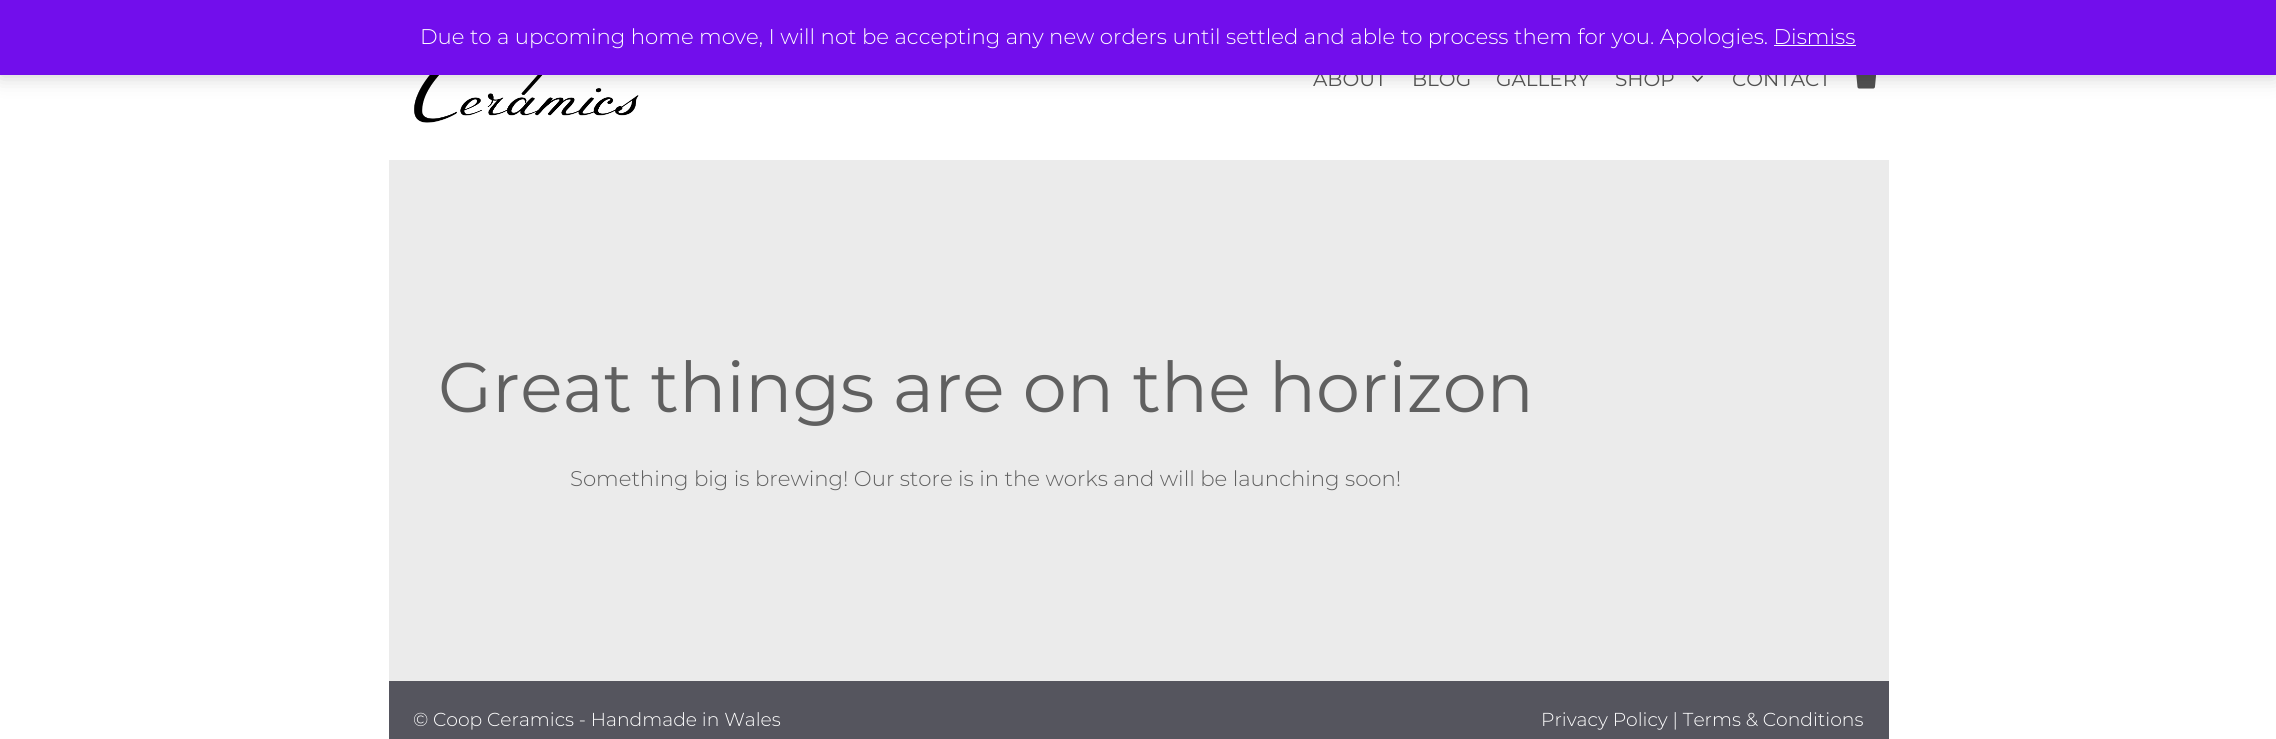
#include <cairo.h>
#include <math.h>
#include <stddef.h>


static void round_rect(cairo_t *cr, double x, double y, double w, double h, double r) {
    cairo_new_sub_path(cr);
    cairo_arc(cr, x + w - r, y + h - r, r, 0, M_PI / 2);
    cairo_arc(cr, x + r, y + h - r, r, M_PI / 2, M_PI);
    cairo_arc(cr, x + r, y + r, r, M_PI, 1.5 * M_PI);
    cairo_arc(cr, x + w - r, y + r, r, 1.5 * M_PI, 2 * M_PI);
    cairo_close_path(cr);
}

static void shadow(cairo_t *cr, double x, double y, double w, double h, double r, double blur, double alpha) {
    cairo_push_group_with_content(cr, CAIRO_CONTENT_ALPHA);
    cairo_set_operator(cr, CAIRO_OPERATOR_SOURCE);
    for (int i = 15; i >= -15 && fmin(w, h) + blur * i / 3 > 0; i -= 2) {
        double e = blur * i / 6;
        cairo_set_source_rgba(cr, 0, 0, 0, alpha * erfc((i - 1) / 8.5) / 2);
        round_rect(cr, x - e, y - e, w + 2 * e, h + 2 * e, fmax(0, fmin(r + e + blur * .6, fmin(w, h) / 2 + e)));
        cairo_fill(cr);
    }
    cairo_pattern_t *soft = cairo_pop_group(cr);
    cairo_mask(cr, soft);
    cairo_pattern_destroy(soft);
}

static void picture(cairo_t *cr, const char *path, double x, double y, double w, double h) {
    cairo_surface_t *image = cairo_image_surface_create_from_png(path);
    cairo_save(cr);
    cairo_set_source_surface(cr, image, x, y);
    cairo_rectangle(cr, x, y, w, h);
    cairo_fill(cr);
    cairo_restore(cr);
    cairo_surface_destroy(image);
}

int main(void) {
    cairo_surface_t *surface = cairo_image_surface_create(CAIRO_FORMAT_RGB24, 2276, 739);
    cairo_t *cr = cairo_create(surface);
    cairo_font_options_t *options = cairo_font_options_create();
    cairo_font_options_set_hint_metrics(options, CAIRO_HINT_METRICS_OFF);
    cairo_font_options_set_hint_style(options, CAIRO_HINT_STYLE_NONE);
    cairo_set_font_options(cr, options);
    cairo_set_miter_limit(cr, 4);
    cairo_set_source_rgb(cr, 1, 1, 1);
    cairo_paint(cr);
    picture(cr, "img1.png", 414, 75, 225, 48);
    picture(cr, "img2.png", 1692, 75, 11, 7);
    picture(cr, "img3.png", 1856, 75, 20, 14);
    cairo_set_source_rgb(cr, 0, 0, 0);
    shadow(cr, 0, 1, 2276, 75, 0, 10.5, 0.2);
    cairo_select_font_face(cr, "Montserrat", CAIRO_FONT_SLANT_NORMAL, CAIRO_FONT_WEIGHT_NORMAL);
    cairo_set_font_size(cr, 20);
    cairo_set_source_rgb(cr, 0.318, 0.318, 0.318);
    cairo_move_to(cr, 1313, 86);
    cairo_show_text(cr, "ABOUT");
    cairo_move_to(cr, 1412, 86);
    cairo_show_text(cr, "BLOG");
    cairo_move_to(cr, 1496, 86);
    cairo_show_text(cr, "GALLERY");
    cairo_move_to(cr, 1615, 86);
    cairo_show_text(cr, "SHOP");
    cairo_move_to(cr, 1732, 86);
    cairo_show_text(cr, "CONTACT");
    cairo_set_source_rgb(cr, 0.447, 0.055, 0.925);
    cairo_rectangle(cr, 0, 0, 2276, 75);
    cairo_fill(cr);
    cairo_select_font_face(cr, "Montserrat Light", CAIRO_FONT_SLANT_NORMAL, CAIRO_FONT_WEIGHT_NORMAL);
    cairo_set_font_size(cr, 21.25);
    cairo_set_source_rgb(cr, 1, 1, 1);
    cairo_move_to(cr, 420, 44);
    cairo_show_text(cr, "Due to a upcoming home move, I will not be accepting any new orders until settled and able to process them for you. Apologies. Dismiss");
    cairo_set_source_rgb(cr, 0.988, 0.984, 0.996);
    cairo_rectangle(cr, 1774, 45, 82, 1);
    cairo_fill(cr);
    cairo_set_source_rgb(cr, 0.918, 0.918, 0.918);
    cairo_rectangle(cr, 389, 160, 1500, 521);
    cairo_fill(cr);
    cairo_select_font_face(cr, "Montserrat", CAIRO_FONT_SLANT_NORMAL, CAIRO_FONT_WEIGHT_NORMAL);
    cairo_set_font_size(cr, 70);
    cairo_set_source_rgb(cr, 0.376, 0.376, 0.376);
    cairo_move_to(cr, 438, 412);
    cairo_show_text(cr, "Great things are on the horizon");
    cairo_select_font_face(cr, "Montserrat Light", CAIRO_FONT_SLANT_NORMAL, CAIRO_FONT_WEIGHT_NORMAL);
    cairo_set_font_size(cr, 21.25);
    cairo_move_to(cr, 570, 486);
    cairo_show_text(cr, "Something big is brewing! Our store is in the works and will be launching soon!");
    cairo_set_source_rgb(cr, 0.333, 0.333, 0.369);
    cairo_rectangle(cr, 389, 681, 1500, 58);
    cairo_fill(cr);
    cairo_set_font_size(cr, 18.75);
    cairo_set_source_rgb(cr, 1, 1, 1);
    cairo_move_to(cr, 413, 726);
    cairo_show_text(cr, "© Coop Ceramics - Handmade in Wales");
    cairo_move_to(cr, 1541, 726);
    cairo_show_text(cr, "Privacy Policy | Terms & Conditions");
    cairo_surface_write_to_png(surface, "page.png");
    cairo_font_options_destroy(options);
    cairo_destroy(cr);
    cairo_surface_destroy(surface);
    return 0;
}
